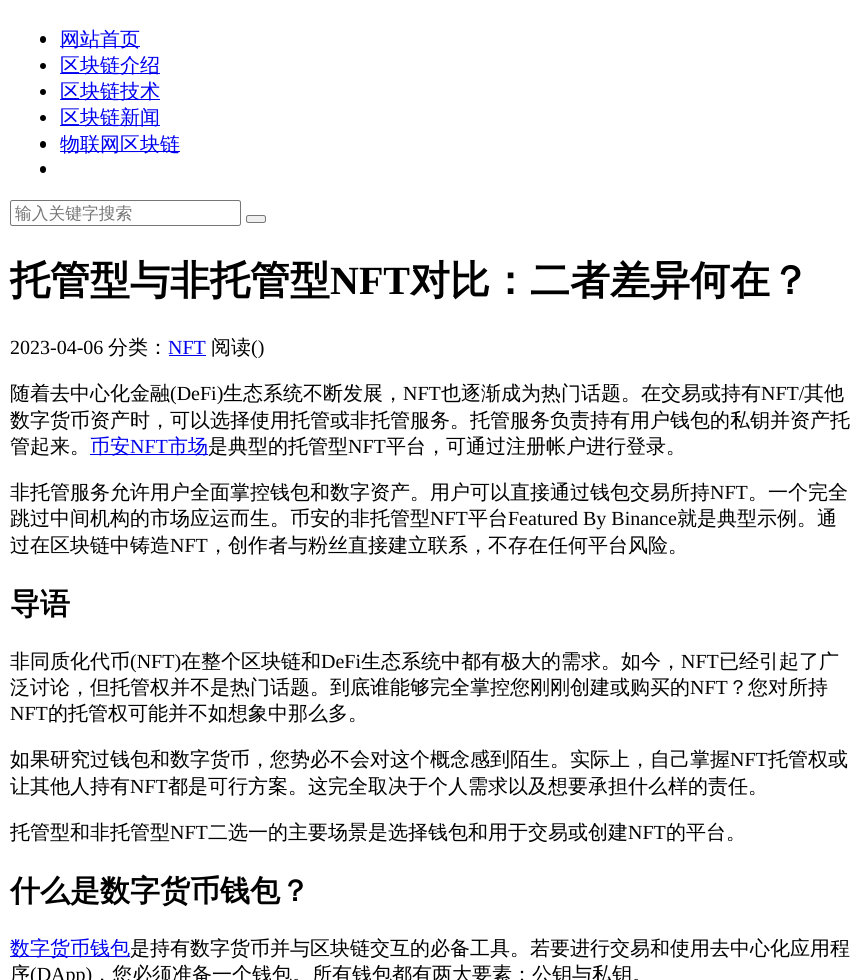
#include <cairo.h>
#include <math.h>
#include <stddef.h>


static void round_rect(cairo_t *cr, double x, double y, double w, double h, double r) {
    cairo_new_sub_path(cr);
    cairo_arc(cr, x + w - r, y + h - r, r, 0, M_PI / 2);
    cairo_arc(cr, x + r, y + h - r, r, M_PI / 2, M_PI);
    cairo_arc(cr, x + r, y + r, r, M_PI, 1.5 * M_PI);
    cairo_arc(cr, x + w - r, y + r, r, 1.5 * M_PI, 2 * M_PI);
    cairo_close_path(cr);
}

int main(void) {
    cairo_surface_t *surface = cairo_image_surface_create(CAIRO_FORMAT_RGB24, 865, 980);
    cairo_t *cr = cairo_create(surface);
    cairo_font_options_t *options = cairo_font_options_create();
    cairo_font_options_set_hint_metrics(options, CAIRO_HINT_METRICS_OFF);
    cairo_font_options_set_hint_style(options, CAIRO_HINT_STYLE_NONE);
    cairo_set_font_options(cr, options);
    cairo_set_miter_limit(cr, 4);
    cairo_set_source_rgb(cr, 1, 1, 1);
    cairo_paint(cr);
    cairo_set_source_rgb(cr, 0, 0, 0);
    round_rect(cr, 40, 36, 6, 7, 3);
    cairo_fill(cr);
    cairo_set_source_rgb(cr, 0, 0, 0.933);
    cairo_rectangle(cr, 60, 46, 80, 1);
    cairo_fill(cr);
    cairo_select_font_face(cr, "WenQuanYi Zen Hei Medium", CAIRO_FONT_SLANT_NORMAL, CAIRO_FONT_WEIGHT_NORMAL);
    cairo_set_font_size(cr, 20);
    cairo_move_to(cr, 60, 46);
    cairo_show_text(cr, "网站首页");
    cairo_set_source_rgb(cr, 0, 0, 0);
    cairo_new_path(cr);
    cairo_arc(cr, 43, 66, 3, 0, 2 * M_PI);
    cairo_fill(cr);
    cairo_set_source_rgb(cr, 0, 0, 0.933);
    cairo_rectangle(cr, 60, 73, 100, 1);
    cairo_fill(cr);
    cairo_move_to(cr, 60, 72);
    cairo_show_text(cr, "区块链介绍");
    cairo_set_source_rgb(cr, 0, 0, 0);
    cairo_new_path(cr);
    cairo_arc(cr, 43, 92, 3, 0, 2 * M_PI);
    cairo_fill(cr);
    cairo_set_source_rgb(cr, 0, 0, 0.933);
    cairo_rectangle(cr, 60, 99, 100, 1);
    cairo_fill(cr);
    cairo_move_to(cr, 60, 98);
    cairo_show_text(cr, "区块链技术");
    cairo_set_source_rgb(cr, 0, 0, 0);
    cairo_new_path(cr);
    cairo_arc(cr, 43, 118, 3, 0, 2 * M_PI);
    cairo_fill(cr);
    cairo_set_source_rgb(cr, 0, 0, 0.933);
    cairo_rectangle(cr, 60, 125, 100, 1);
    cairo_fill(cr);
    cairo_move_to(cr, 60, 124);
    cairo_show_text(cr, "区块链新闻");
    cairo_set_source_rgb(cr, 0, 0, 0);
    round_rect(cr, 40, 141, 6, 7, 3);
    cairo_fill(cr);
    cairo_set_source_rgb(cr, 0, 0, 0.933);
    cairo_rectangle(cr, 60, 151, 120, 1);
    cairo_fill(cr);
    cairo_move_to(cr, 60, 151);
    cairo_show_text(cr, "物联网区块链");
    cairo_set_source_rgb(cr, 0, 0, 0);
    round_rect(cr, 40, 166, 6, 7, 3);
    cairo_fill(cr);
    round_rect(cr, 10.5, 200.5, 230, 25, 2);
    cairo_set_source_rgb(cr, 0.463, 0.463, 0.463);
    cairo_set_line_width(cr, 1);
    cairo_stroke(cr);
    cairo_set_font_size(cr, 16.75);
    cairo_set_source_rgb(cr, 0.459, 0.459, 0.459);
    cairo_move_to(cr, 15, 219);
    cairo_show_text(cr, "输入关键字搜索");
    cairo_set_source_rgb(cr, 0.937, 0.937, 0.937);
    round_rect(cr, 246.5, 215.5, 19, 7, 2);
    cairo_fill_preserve(cr);
    cairo_set_source_rgb(cr, 0.463, 0.463, 0.463);
    cairo_stroke(cr);
    cairo_select_font_face(cr, "WenQuanYi Zen Hei", CAIRO_FONT_SLANT_NORMAL, CAIRO_FONT_WEIGHT_BOLD);
    cairo_set_font_size(cr, 40);
    cairo_set_source_rgb(cr, 0, 0, 0);
    cairo_move_to(cr, 10, 294);
    cairo_show_text(cr, "托管型与非托管型");
    cairo_select_font_face(cr, "Liberation Serif", CAIRO_FONT_SLANT_NORMAL, CAIRO_FONT_WEIGHT_BOLD);
    cairo_move_to(cr, 330, 294);
    cairo_show_text(cr, "NFT");
    cairo_select_font_face(cr, "WenQuanYi Zen Hei", CAIRO_FONT_SLANT_NORMAL, CAIRO_FONT_WEIGHT_BOLD);
    cairo_move_to(cr, 410, 294);
    cairo_show_text(cr, "对比：二者差异何在？");
    cairo_select_font_face(cr, "Liberation Serif", CAIRO_FONT_SLANT_NORMAL, CAIRO_FONT_WEIGHT_NORMAL);
    cairo_set_font_size(cr, 20);
    cairo_move_to(cr, 10, 354);
    cairo_show_text(cr, "2023-04-06");
    cairo_select_font_face(cr, "WenQuanYi Zen Hei Medium", CAIRO_FONT_SLANT_NORMAL, CAIRO_FONT_WEIGHT_NORMAL);
    cairo_move_to(cr, 108, 354);
    cairo_show_text(cr, "分类：");
    cairo_select_font_face(cr, "Liberation Serif", CAIRO_FONT_SLANT_NORMAL, CAIRO_FONT_WEIGHT_NORMAL);
    cairo_set_source_rgb(cr, 0, 0, 0.933);
    cairo_move_to(cr, 168, 354);
    cairo_show_text(cr, "NFT");
    cairo_rectangle(cr, 169, 355, 37, 1);
    cairo_fill(cr);
    cairo_select_font_face(cr, "WenQuanYi Zen Hei Medium", CAIRO_FONT_SLANT_NORMAL, CAIRO_FONT_WEIGHT_NORMAL);
    cairo_set_source_rgb(cr, 0, 0, 0);
    cairo_move_to(cr, 211, 354);
    cairo_show_text(cr, "阅读");
    cairo_select_font_face(cr, "Liberation Serif", CAIRO_FONT_SLANT_NORMAL, CAIRO_FONT_WEIGHT_NORMAL);
    cairo_move_to(cr, 251, 354);
    cairo_show_text(cr, "()");
    cairo_select_font_face(cr, "WenQuanYi Zen Hei Medium", CAIRO_FONT_SLANT_NORMAL, CAIRO_FONT_WEIGHT_NORMAL);
    cairo_move_to(cr, 10, 400);
    cairo_show_text(cr, "随着去中心化金融");
    cairo_select_font_face(cr, "Liberation Serif", CAIRO_FONT_SLANT_NORMAL, CAIRO_FONT_WEIGHT_NORMAL);
    cairo_move_to(cr, 170, 400);
    cairo_show_text(cr, "(DeFi)");
    cairo_select_font_face(cr, "WenQuanYi Zen Hei Medium", CAIRO_FONT_SLANT_NORMAL, CAIRO_FONT_WEIGHT_NORMAL);
    cairo_move_to(cr, 223, 400);
    cairo_show_text(cr, "生态系统不断发展，");
    cairo_select_font_face(cr, "Liberation Serif", CAIRO_FONT_SLANT_NORMAL, CAIRO_FONT_WEIGHT_NORMAL);
    cairo_move_to(cr, 403, 400);
    cairo_show_text(cr, "NFT");
    cairo_select_font_face(cr, "WenQuanYi Zen Hei Medium", CAIRO_FONT_SLANT_NORMAL, CAIRO_FONT_WEIGHT_NORMAL);
    cairo_move_to(cr, 441, 400);
    cairo_show_text(cr, "也逐渐成为热门话题。在交易或持有");
    cairo_select_font_face(cr, "Liberation Serif", CAIRO_FONT_SLANT_NORMAL, CAIRO_FONT_WEIGHT_NORMAL);
    cairo_move_to(cr, 761, 400);
    cairo_show_text(cr, "NFT/");
    cairo_select_font_face(cr, "WenQuanYi Zen Hei Medium", CAIRO_FONT_SLANT_NORMAL, CAIRO_FONT_WEIGHT_NORMAL);
    cairo_move_to(cr, 804, 400);
    cairo_show_text(cr, "其他");
    cairo_move_to(cr, 10, 427);
    cairo_show_text(cr, "数字货币资产时，可以选择使用托管或非托管服务。托管服务负责持有用户钱包的私钥并资产托");
    cairo_move_to(cr, 10, 453);
    cairo_show_text(cr, "管起来。");
    cairo_set_source_rgb(cr, 0, 0, 0.933);
    cairo_rectangle(cr, 90, 454, 118, 1);
    cairo_fill(cr);
    cairo_move_to(cr, 90, 453);
    cairo_show_text(cr, "币安");
    cairo_select_font_face(cr, "Liberation Serif", CAIRO_FONT_SLANT_NORMAL, CAIRO_FONT_WEIGHT_NORMAL);
    cairo_move_to(cr, 130, 453);
    cairo_show_text(cr, "NFT");
    cairo_select_font_face(cr, "WenQuanYi Zen Hei Medium", CAIRO_FONT_SLANT_NORMAL, CAIRO_FONT_WEIGHT_NORMAL);
    cairo_move_to(cr, 168, 453);
    cairo_show_text(cr, "市场");
    cairo_set_source_rgb(cr, 0, 0, 0);
    cairo_move_to(cr, 208, 453);
    cairo_show_text(cr, "是典型的托管型");
    cairo_select_font_face(cr, "Liberation Serif", CAIRO_FONT_SLANT_NORMAL, CAIRO_FONT_WEIGHT_NORMAL);
    cairo_move_to(cr, 348, 453);
    cairo_show_text(cr, "NFT");
    cairo_select_font_face(cr, "WenQuanYi Zen Hei Medium", CAIRO_FONT_SLANT_NORMAL, CAIRO_FONT_WEIGHT_NORMAL);
    cairo_move_to(cr, 386, 453);
    cairo_show_text(cr, "平台，可通过注册帐户进行登录。");
    cairo_move_to(cr, 10, 499);
    cairo_show_text(cr, "非托管服务允许用户全面掌控钱包和数字资产。用户可以直接通过钱包交易所持");
    cairo_select_font_face(cr, "Liberation Serif", CAIRO_FONT_SLANT_NORMAL, CAIRO_FONT_WEIGHT_NORMAL);
    cairo_move_to(cr, 710, 499);
    cairo_show_text(cr, "NFT");
    cairo_select_font_face(cr, "WenQuanYi Zen Hei Medium", CAIRO_FONT_SLANT_NORMAL, CAIRO_FONT_WEIGHT_NORMAL);
    cairo_move_to(cr, 748, 499);
    cairo_show_text(cr, "。一个完全");
    cairo_move_to(cr, 10, 525);
    cairo_show_text(cr, "跳过中间机构的市场应运而生。币安的非托管型");
    cairo_select_font_face(cr, "Liberation Serif", CAIRO_FONT_SLANT_NORMAL, CAIRO_FONT_WEIGHT_NORMAL);
    cairo_move_to(cr, 430, 525);
    cairo_show_text(cr, "NFT");
    cairo_select_font_face(cr, "WenQuanYi Zen Hei Medium", CAIRO_FONT_SLANT_NORMAL, CAIRO_FONT_WEIGHT_NORMAL);
    cairo_move_to(cr, 468, 525);
    cairo_show_text(cr, "平台");
    cairo_select_font_face(cr, "Liberation Serif", CAIRO_FONT_SLANT_NORMAL, CAIRO_FONT_WEIGHT_NORMAL);
    cairo_move_to(cr, 508, 525);
    cairo_show_text(cr, "Featured By Binance");
    cairo_select_font_face(cr, "WenQuanYi Zen Hei Medium", CAIRO_FONT_SLANT_NORMAL, CAIRO_FONT_WEIGHT_NORMAL);
    cairo_move_to(cr, 677, 525);
    cairo_show_text(cr, "就是典型示例。通");
    cairo_move_to(cr, 10, 552);
    cairo_show_text(cr, "过在区块链中铸造");
    cairo_select_font_face(cr, "Liberation Serif", CAIRO_FONT_SLANT_NORMAL, CAIRO_FONT_WEIGHT_NORMAL);
    cairo_move_to(cr, 170, 552);
    cairo_show_text(cr, "NFT");
    cairo_select_font_face(cr, "WenQuanYi Zen Hei Medium", CAIRO_FONT_SLANT_NORMAL, CAIRO_FONT_WEIGHT_NORMAL);
    cairo_move_to(cr, 208, 552);
    cairo_show_text(cr, "，创作者与粉丝直接建立联系，不存在任何平台风险。");
    cairo_select_font_face(cr, "WenQuanYi Zen Hei", CAIRO_FONT_SLANT_NORMAL, CAIRO_FONT_WEIGHT_BOLD);
    cairo_set_font_size(cr, 30);
    cairo_move_to(cr, 10, 614);
    cairo_show_text(cr, "导语");
    cairo_select_font_face(cr, "WenQuanYi Zen Hei Medium", CAIRO_FONT_SLANT_NORMAL, CAIRO_FONT_WEIGHT_NORMAL);
    cairo_set_font_size(cr, 20);
    cairo_move_to(cr, 10, 668);
    cairo_show_text(cr, "非同质化代币");
    cairo_select_font_face(cr, "Liberation Serif", CAIRO_FONT_SLANT_NORMAL, CAIRO_FONT_WEIGHT_NORMAL);
    cairo_move_to(cr, 130, 668);
    cairo_show_text(cr, "(NFT)");
    cairo_select_font_face(cr, "WenQuanYi Zen Hei Medium", CAIRO_FONT_SLANT_NORMAL, CAIRO_FONT_WEIGHT_NORMAL);
    cairo_move_to(cr, 181, 668);
    cairo_show_text(cr, "在整个区块链和");
    cairo_select_font_face(cr, "Liberation Serif", CAIRO_FONT_SLANT_NORMAL, CAIRO_FONT_WEIGHT_NORMAL);
    cairo_move_to(cr, 321, 668);
    cairo_show_text(cr, "DeFi");
    cairo_select_font_face(cr, "WenQuanYi Zen Hei Medium", CAIRO_FONT_SLANT_NORMAL, CAIRO_FONT_WEIGHT_NORMAL);
    cairo_move_to(cr, 361, 668);
    cairo_show_text(cr, "生态系统中都有极大的需求。如今，");
    cairo_select_font_face(cr, "Liberation Serif", CAIRO_FONT_SLANT_NORMAL, CAIRO_FONT_WEIGHT_NORMAL);
    cairo_move_to(cr, 681, 668);
    cairo_show_text(cr, "NFT");
    cairo_select_font_face(cr, "WenQuanYi Zen Hei Medium", CAIRO_FONT_SLANT_NORMAL, CAIRO_FONT_WEIGHT_NORMAL);
    cairo_move_to(cr, 719, 668);
    cairo_show_text(cr, "已经引起了广");
    cairo_move_to(cr, 10, 694);
    cairo_show_text(cr, "泛讨论，但托管权并不是热门话题。到底谁能够完全掌控您刚刚创建或购买的");
    cairo_select_font_face(cr, "Liberation Serif", CAIRO_FONT_SLANT_NORMAL, CAIRO_FONT_WEIGHT_NORMAL);
    cairo_move_to(cr, 690, 694);
    cairo_show_text(cr, "NFT");
    cairo_select_font_face(cr, "WenQuanYi Zen Hei Medium", CAIRO_FONT_SLANT_NORMAL, CAIRO_FONT_WEIGHT_NORMAL);
    cairo_move_to(cr, 728, 694);
    cairo_show_text(cr, "？您对所持");
    cairo_select_font_face(cr, "Liberation Serif", CAIRO_FONT_SLANT_NORMAL, CAIRO_FONT_WEIGHT_NORMAL);
    cairo_move_to(cr, 10, 720);
    cairo_show_text(cr, "NFT");
    cairo_select_font_face(cr, "WenQuanYi Zen Hei Medium", CAIRO_FONT_SLANT_NORMAL, CAIRO_FONT_WEIGHT_NORMAL);
    cairo_move_to(cr, 48, 720);
    cairo_show_text(cr, "的托管权可能并不如想象中那么多。");
    cairo_move_to(cr, 10, 766);
    cairo_show_text(cr, "如果研究过钱包和数字货币，您势必不会对这个概念感到陌生。实际上，自己掌握");
    cairo_select_font_face(cr, "Liberation Serif", CAIRO_FONT_SLANT_NORMAL, CAIRO_FONT_WEIGHT_NORMAL);
    cairo_move_to(cr, 730, 766);
    cairo_show_text(cr, "NFT");
    cairo_select_font_face(cr, "WenQuanYi Zen Hei Medium", CAIRO_FONT_SLANT_NORMAL, CAIRO_FONT_WEIGHT_NORMAL);
    cairo_move_to(cr, 768, 766);
    cairo_show_text(cr, "托管权或");
    cairo_move_to(cr, 10, 793);
    cairo_show_text(cr, "让其他人持有");
    cairo_select_font_face(cr, "Liberation Serif", CAIRO_FONT_SLANT_NORMAL, CAIRO_FONT_WEIGHT_NORMAL);
    cairo_move_to(cr, 130, 793);
    cairo_show_text(cr, "NFT");
    cairo_select_font_face(cr, "WenQuanYi Zen Hei Medium", CAIRO_FONT_SLANT_NORMAL, CAIRO_FONT_WEIGHT_NORMAL);
    cairo_move_to(cr, 168, 793);
    cairo_show_text(cr, "都是可行方案。这完全取决于个人需求以及想要承担什么样的责任。");
    cairo_move_to(cr, 10, 839);
    cairo_show_text(cr, "托管型和非托管型");
    cairo_select_font_face(cr, "Liberation Serif", CAIRO_FONT_SLANT_NORMAL, CAIRO_FONT_WEIGHT_NORMAL);
    cairo_move_to(cr, 170, 839);
    cairo_show_text(cr, "NFT");
    cairo_select_font_face(cr, "WenQuanYi Zen Hei Medium", CAIRO_FONT_SLANT_NORMAL, CAIRO_FONT_WEIGHT_NORMAL);
    cairo_move_to(cr, 208, 839);
    cairo_show_text(cr, "二选一的主要场景是选择钱包和用于交易或创建");
    cairo_select_font_face(cr, "Liberation Serif", CAIRO_FONT_SLANT_NORMAL, CAIRO_FONT_WEIGHT_NORMAL);
    cairo_move_to(cr, 628, 839);
    cairo_show_text(cr, "NFT");
    cairo_select_font_face(cr, "WenQuanYi Zen Hei Medium", CAIRO_FONT_SLANT_NORMAL, CAIRO_FONT_WEIGHT_NORMAL);
    cairo_move_to(cr, 666, 839);
    cairo_show_text(cr, "的平台。");
    cairo_select_font_face(cr, "WenQuanYi Zen Hei", CAIRO_FONT_SLANT_NORMAL, CAIRO_FONT_WEIGHT_BOLD);
    cairo_set_font_size(cr, 30);
    cairo_move_to(cr, 10, 901);
    cairo_show_text(cr, "什么是数字货币钱包？");
    cairo_set_source_rgb(cr, 0, 0, 0.933);
    cairo_rectangle(cr, 10, 956, 120, 1);
    cairo_fill(cr);
    cairo_select_font_face(cr, "WenQuanYi Zen Hei Medium", CAIRO_FONT_SLANT_NORMAL, CAIRO_FONT_WEIGHT_NORMAL);
    cairo_set_font_size(cr, 20);
    cairo_move_to(cr, 10, 955);
    cairo_show_text(cr, "数字货币钱包");
    cairo_set_source_rgb(cr, 0, 0, 0);
    cairo_move_to(cr, 130, 955);
    cairo_show_text(cr, "是持有数字货币并与区块链交互的必备工具。若要进行交易和使用去中心化应用程");
    cairo_move_to(cr, 10, 981);
    cairo_show_text(cr, "序");
    cairo_select_font_face(cr, "Liberation Serif", CAIRO_FONT_SLANT_NORMAL, CAIRO_FONT_WEIGHT_NORMAL);
    cairo_move_to(cr, 30, 981);
    cairo_show_text(cr, "(DApp)");
    cairo_select_font_face(cr, "WenQuanYi Zen Hei Medium", CAIRO_FONT_SLANT_NORMAL, CAIRO_FONT_WEIGHT_NORMAL);
    cairo_move_to(cr, 92, 981);
    cairo_show_text(cr, "，您必须准备一个钱包。所有钱包都有两大要素：公钥与私钥。");
    cairo_surface_write_to_png(surface, "page.png");
    cairo_font_options_destroy(options);
    cairo_destroy(cr);
    cairo_surface_destroy(surface);
    return 0;
}
